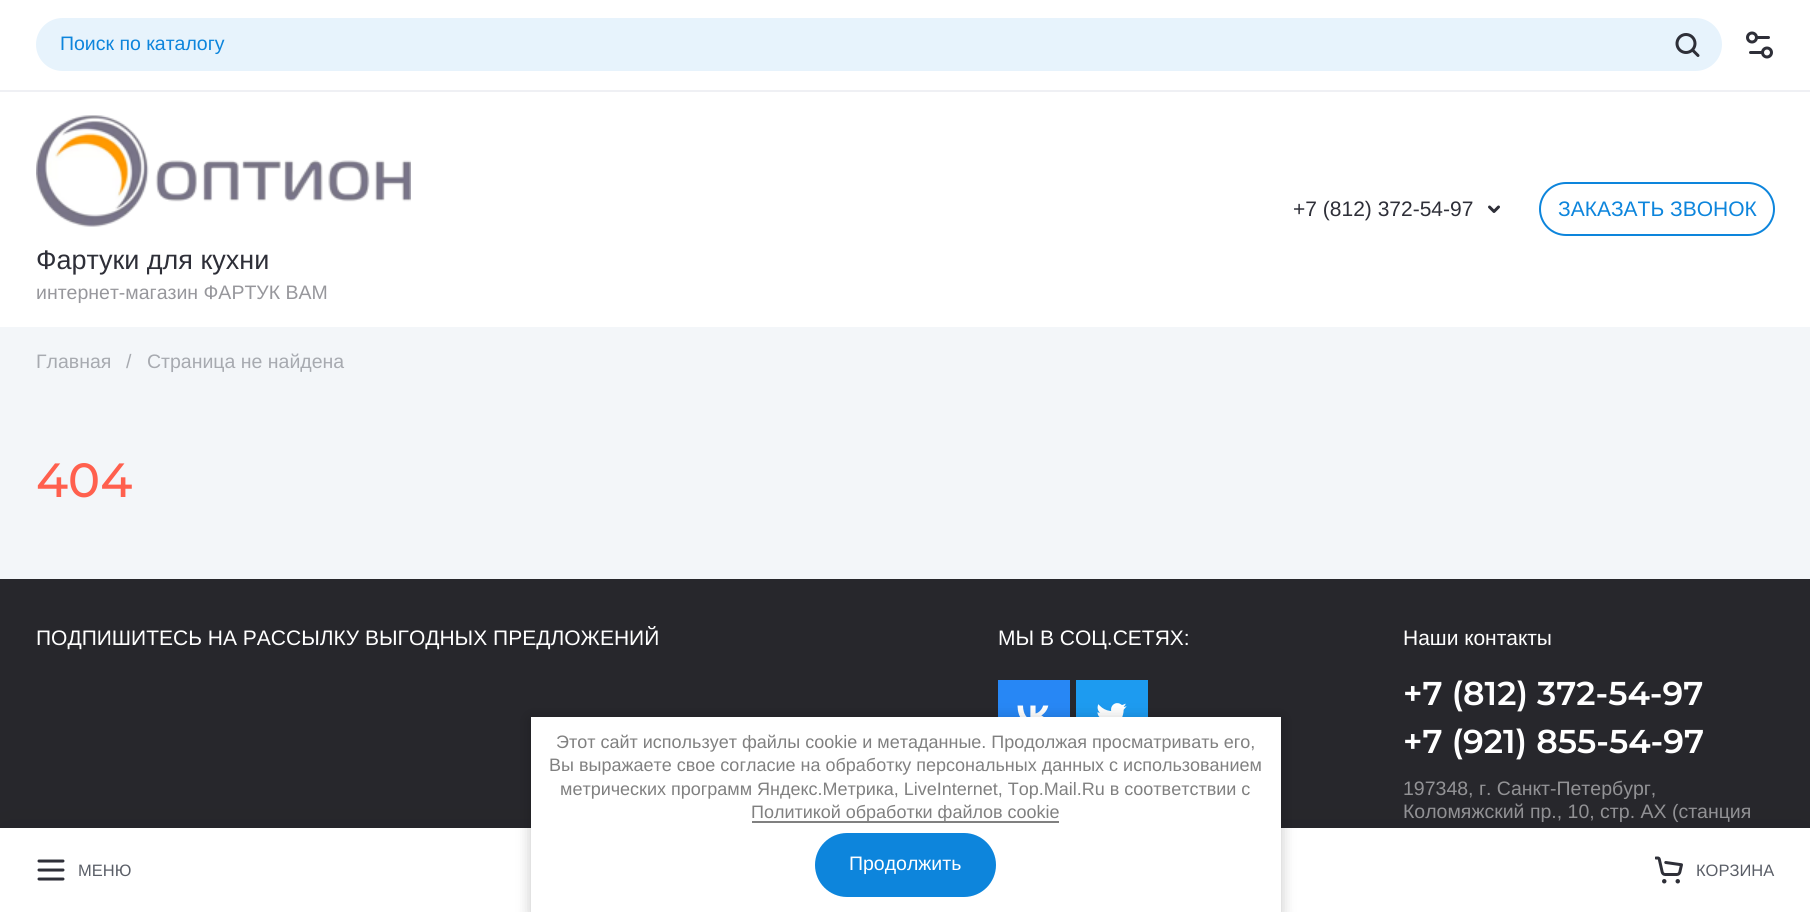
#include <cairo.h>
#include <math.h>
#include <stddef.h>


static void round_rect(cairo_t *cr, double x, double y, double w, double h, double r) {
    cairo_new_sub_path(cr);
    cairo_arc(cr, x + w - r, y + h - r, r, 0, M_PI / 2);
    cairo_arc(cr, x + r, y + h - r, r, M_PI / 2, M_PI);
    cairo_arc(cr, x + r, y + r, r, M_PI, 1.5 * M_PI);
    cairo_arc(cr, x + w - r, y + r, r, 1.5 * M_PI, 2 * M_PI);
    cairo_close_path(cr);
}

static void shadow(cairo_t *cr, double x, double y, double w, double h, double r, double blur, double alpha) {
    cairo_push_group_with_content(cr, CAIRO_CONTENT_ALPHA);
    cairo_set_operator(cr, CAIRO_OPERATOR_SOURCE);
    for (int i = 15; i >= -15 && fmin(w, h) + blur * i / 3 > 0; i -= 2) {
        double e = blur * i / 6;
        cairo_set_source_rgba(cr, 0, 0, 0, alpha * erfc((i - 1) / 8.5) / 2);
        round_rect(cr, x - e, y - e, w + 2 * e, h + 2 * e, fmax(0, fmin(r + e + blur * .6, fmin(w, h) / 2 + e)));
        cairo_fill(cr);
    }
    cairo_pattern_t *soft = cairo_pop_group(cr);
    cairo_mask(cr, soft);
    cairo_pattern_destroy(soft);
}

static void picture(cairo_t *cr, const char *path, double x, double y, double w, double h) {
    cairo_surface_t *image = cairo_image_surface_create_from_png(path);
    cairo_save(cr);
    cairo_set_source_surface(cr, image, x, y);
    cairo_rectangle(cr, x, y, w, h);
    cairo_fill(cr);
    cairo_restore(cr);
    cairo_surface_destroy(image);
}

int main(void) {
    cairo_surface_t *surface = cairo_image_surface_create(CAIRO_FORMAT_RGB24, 1810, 912);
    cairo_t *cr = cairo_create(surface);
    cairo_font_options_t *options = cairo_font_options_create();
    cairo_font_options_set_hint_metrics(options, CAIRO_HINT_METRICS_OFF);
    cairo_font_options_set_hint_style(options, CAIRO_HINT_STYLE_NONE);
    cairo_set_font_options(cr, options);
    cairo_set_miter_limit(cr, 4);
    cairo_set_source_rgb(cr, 0.953, 0.961, 0.976);
    cairo_paint(cr);
    cairo_set_source_rgb(cr, 1, 1, 1);
    cairo_rectangle(cr, 0, 0, 1810, 327);
    cairo_fill(cr);
    cairo_set_source_rgb(cr, 0.937, 0.941, 0.957);
    cairo_rectangle(cr, 0, 90, 1810, 2);
    cairo_fill(cr);
    cairo_set_source_rgb(cr, 0.906, 0.953, 0.988);
    round_rect(cr, 36, 18, 1686, 53, 26.5);
    cairo_fill(cr);
    cairo_select_font_face(cr, "Liberation Sans", CAIRO_FONT_SLANT_NORMAL, CAIRO_FONT_WEIGHT_NORMAL);
    cairo_set_font_size(cr, 19.5);
    cairo_set_source_rgb(cr, 0.051, 0.522, 0.863);
    cairo_move_to(cr, 60, 50);
    cairo_show_text(cr, "Поиск по каталогу");
    picture(cr, "img1.png", 1675, 33, 25, 24);
    picture(cr, "img2.png", 1746, 31, 27, 28);
    cairo_set_font_size(cr, 21);
    cairo_set_source_rgb(cr, 0.18, 0.184, 0.22);
    cairo_move_to(cr, 1293, 216);
    cairo_show_text(cr, "+7 (812) 372-54-97");
    picture(cr, "img3.png", 1488, 205, 12, 8);
    round_rect(cr, 1540, 183, 234, 52, 26);
    cairo_set_source_rgb(cr, 0.051, 0.522, 0.863);
    cairo_stroke(cr);
    cairo_move_to(cr, 1558, 216);
    cairo_show_text(cr, "ЗАКАЗАТЬ ЗВОНОК");
    picture(cr, "img4.png", 36, 115, 375, 112);
    cairo_set_font_size(cr, 27);
    cairo_set_source_rgb(cr, 0.18, 0.184, 0.22);
    cairo_move_to(cr, 36, 269);
    cairo_show_text(cr, "Фартуки для кухни");
    cairo_set_font_size(cr, 19.5);
    cairo_set_source_rgb(cr, 0.592, 0.592, 0.612);
    cairo_move_to(cr, 36, 299);
    cairo_show_text(cr, "интернет-магазин ФАРТУК ВАМ");
    cairo_set_source_rgb(cr, 0.655, 0.667, 0.69);
    cairo_move_to(cr, 36, 368);
    cairo_show_text(cr, "Главная");
    cairo_move_to(cr, 126, 368);
    cairo_show_text(cr, "/");
    cairo_move_to(cr, 147, 368);
    cairo_show_text(cr, "Страница не найдена");
    cairo_select_font_face(cr, "Montserrat Medium", CAIRO_FONT_SLANT_NORMAL, CAIRO_FONT_WEIGHT_NORMAL);
    cairo_set_font_size(cr, 48);
    cairo_set_source_rgb(cr, 1, 0.376, 0.306);
    cairo_move_to(cr, 36, 497);
    cairo_show_text(cr, "404");
    cairo_set_source_rgb(cr, 0.153, 0.153, 0.173);
    cairo_rectangle(cr, 0, 579, 1810, 249);
    cairo_fill(cr);
    cairo_select_font_face(cr, "Liberation Sans", CAIRO_FONT_SLANT_NORMAL, CAIRO_FONT_WEIGHT_NORMAL);
    cairo_set_font_size(cr, 21);
    cairo_set_source_rgb(cr, 1, 1, 1);
    cairo_move_to(cr, 36, 645);
    cairo_show_text(cr, "ПОДПИШИТЕСЬ НА РАССЫЛКУ ВЫГОДНЫХ ПРЕДЛОЖЕНИЙ");
    cairo_move_to(cr, 998, 645);
    cairo_show_text(cr, "МЫ В СОЦ.СЕТЯХ:");
    picture(cr, "img5.png", 998, 680, 72, 37);
    picture(cr, "img6.png", 1076, 680, 72, 37);
    cairo_move_to(cr, 1403, 645);
    cairo_show_text(cr, "Наши контакты");
    cairo_select_font_face(cr, "Montserrat SemiBold", CAIRO_FONT_SLANT_NORMAL, CAIRO_FONT_WEIGHT_NORMAL);
    cairo_set_font_size(cr, 33);
    cairo_move_to(cr, 1403, 705);
    cairo_show_text(cr, "+7 (812) 372-54-97");
    cairo_move_to(cr, 1403, 753);
    cairo_show_text(cr, "+7 (921) 855-54-97");
    cairo_select_font_face(cr, "Liberation Sans", CAIRO_FONT_SLANT_NORMAL, CAIRO_FONT_WEIGHT_NORMAL);
    cairo_set_font_size(cr, 19.5);
    cairo_set_source_rgb(cr, 0.576, 0.576, 0.588);
    cairo_move_to(cr, 1403, 795);
    cairo_show_text(cr, "197348, г. Санкт-Петербург,");
    cairo_move_to(cr, 1403, 818);
    cairo_show_text(cr, "Коломяжский пр., 10, стр. АХ (станция");
    cairo_set_source_rgb(cr, 0, 0, 0);
    shadow(cr, 0, 834, 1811, 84, 0, 30, 0.06);
    cairo_set_source_rgb(cr, 1, 1, 1);
    cairo_rectangle(cr, 0, 828, 1810, 84);
    cairo_fill(cr);
    picture(cr, "img7.png", 37, 859, 28, 22);
    cairo_set_font_size(cr, 16.5);
    cairo_set_source_rgb(cr, 0.353, 0.369, 0.404);
    cairo_move_to(cr, 78, 876);
    cairo_show_text(cr, "МЕНЮ");
    picture(cr, "img8.png", 1655, 856, 28, 28);
    cairo_move_to(cr, 1696, 876);
    cairo_show_text(cr, "КОРЗИНА");
    cairo_set_source_rgb(cr, 0, 0, 0);
    shadow(cr, 531, 719, 750, 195, 0, 7.5, 0.23);
    cairo_set_source_rgb(cr, 1, 1, 1);
    cairo_rectangle(cr, 531, 717, 750, 195);
    cairo_fill(cr);
    cairo_set_font_size(cr, 18);
    cairo_set_source_rgb(cr, 0.502, 0.502, 0.502);
    cairo_move_to(cr, 556, 748);
    cairo_show_text(cr, "Этот сайт использует файлы cookie и метаданные. Продолжая просматривать его,");
    cairo_move_to(cr, 549, 771);
    cairo_show_text(cr, "Вы выражаете свое согласие на обработку персональных данных с использованием");
    cairo_move_to(cr, 560, 795);
    cairo_show_text(cr, "метрических программ Яндекс.Метрика, LiveInternet, Top.Mail.Ru в соответствии с");
    cairo_rectangle(cr, 752, 821, 307, 2);
    cairo_fill(cr);
    cairo_move_to(cr, 751, 818);
    cairo_show_text(cr, "Политикой обработки файлов cookie");
    cairo_set_source_rgb(cr, 0.051, 0.522, 0.863);
    round_rect(cr, 815, 833, 181, 64, 32);
    cairo_fill(cr);
    cairo_set_font_size(cr, 19.5);
    cairo_set_source_rgb(cr, 1, 1, 1);
    cairo_move_to(cr, 849, 870);
    cairo_show_text(cr, "Продолжить");
    cairo_surface_write_to_png(surface, "page.png");
    cairo_font_options_destroy(options);
    cairo_destroy(cr);
    cairo_surface_destroy(surface);
    return 0;
}
